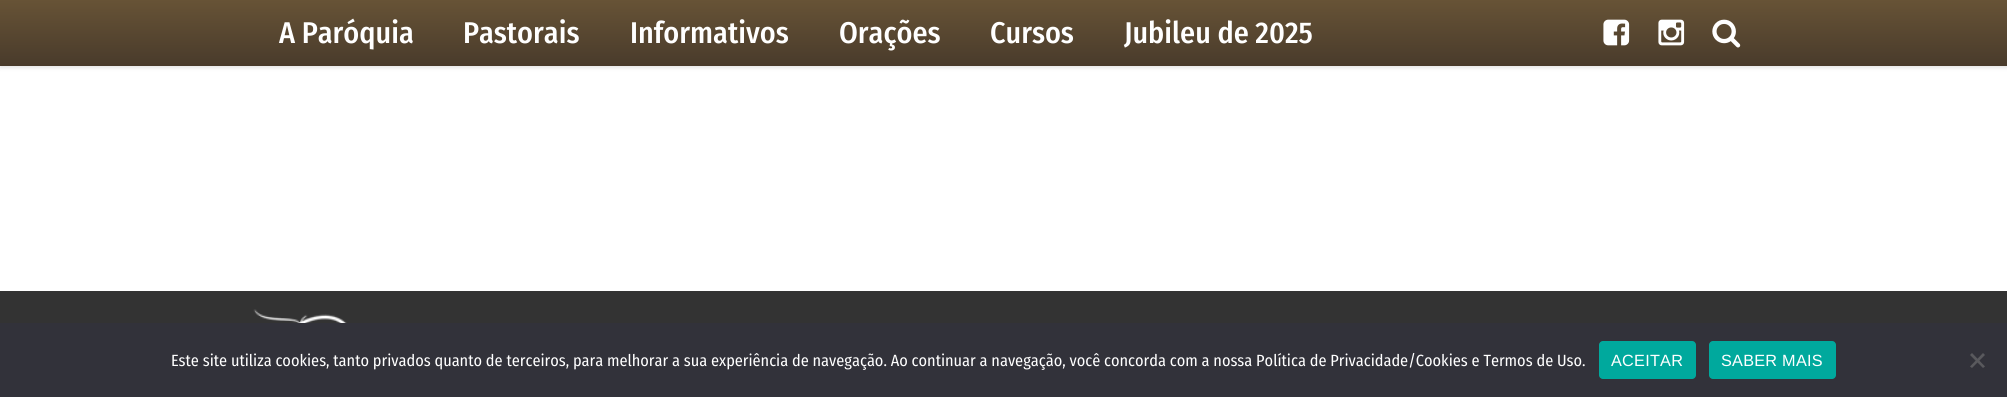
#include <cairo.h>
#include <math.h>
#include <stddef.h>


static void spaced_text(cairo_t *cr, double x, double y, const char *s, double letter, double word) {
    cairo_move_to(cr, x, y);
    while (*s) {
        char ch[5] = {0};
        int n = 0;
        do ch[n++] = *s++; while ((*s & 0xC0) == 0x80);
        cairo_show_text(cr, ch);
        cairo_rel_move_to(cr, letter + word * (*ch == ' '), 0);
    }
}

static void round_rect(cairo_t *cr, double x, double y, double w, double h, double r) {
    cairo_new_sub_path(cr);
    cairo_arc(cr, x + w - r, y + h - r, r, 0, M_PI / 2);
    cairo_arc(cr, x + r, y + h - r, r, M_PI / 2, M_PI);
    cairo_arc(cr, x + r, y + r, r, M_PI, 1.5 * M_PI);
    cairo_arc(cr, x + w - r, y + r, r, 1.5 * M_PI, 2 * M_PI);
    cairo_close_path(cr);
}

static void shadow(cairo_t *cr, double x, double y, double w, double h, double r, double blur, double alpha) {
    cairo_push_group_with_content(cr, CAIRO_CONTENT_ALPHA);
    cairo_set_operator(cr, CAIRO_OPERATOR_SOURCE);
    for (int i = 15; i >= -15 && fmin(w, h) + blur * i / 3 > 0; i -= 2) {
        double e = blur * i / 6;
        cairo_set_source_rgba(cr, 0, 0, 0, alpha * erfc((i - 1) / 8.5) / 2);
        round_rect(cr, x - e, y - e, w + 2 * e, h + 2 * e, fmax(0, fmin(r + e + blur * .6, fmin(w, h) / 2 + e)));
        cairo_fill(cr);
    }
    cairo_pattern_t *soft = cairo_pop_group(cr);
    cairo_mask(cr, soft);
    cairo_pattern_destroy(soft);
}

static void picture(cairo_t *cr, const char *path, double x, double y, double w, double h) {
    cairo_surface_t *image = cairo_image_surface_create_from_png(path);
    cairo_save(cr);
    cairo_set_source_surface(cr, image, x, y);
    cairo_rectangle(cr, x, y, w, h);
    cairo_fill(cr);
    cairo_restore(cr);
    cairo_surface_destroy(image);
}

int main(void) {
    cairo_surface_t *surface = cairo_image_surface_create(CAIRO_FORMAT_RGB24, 2007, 397);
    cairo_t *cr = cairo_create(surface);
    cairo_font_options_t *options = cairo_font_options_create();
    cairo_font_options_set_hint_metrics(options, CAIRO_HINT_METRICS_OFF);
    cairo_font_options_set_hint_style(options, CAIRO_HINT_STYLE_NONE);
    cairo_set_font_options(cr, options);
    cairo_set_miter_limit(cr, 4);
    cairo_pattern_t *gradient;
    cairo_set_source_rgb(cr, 1, 1, 1);
    cairo_paint(cr);
    cairo_set_source_rgb(cr, 0, 0, 0);
    shadow(cr, 0, 1, 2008, 67, 0, 2, 0.1);
    gradient = cairo_pattern_create_linear(1004, 0, 1004, 66);
    cairo_pattern_add_color_stop_rgba(gradient, 0, 0.404, 0.325, 0.212, 1);
    cairo_pattern_add_color_stop_rgba(gradient, 1, 0.286, 0.231, 0.169, 1);
    cairo_set_source(cr, gradient);
    cairo_pattern_destroy(gradient);
    cairo_rectangle(cr, 0, 0, 2007, 66);
    cairo_fill(cr);
    cairo_select_font_face(cr, "Fira Sans Condensed Medium", CAIRO_FONT_SLANT_NORMAL, CAIRO_FONT_WEIGHT_NORMAL);
    cairo_set_font_size(cr, 30);
    cairo_set_source_rgb(cr, 1, 1, 1);
    cairo_move_to(cr, 279, 43);
    cairo_show_text(cr, "A Paróquia");
    cairo_move_to(cr, 463, 43);
    cairo_show_text(cr, "Pastorais");
    cairo_move_to(cr, 630, 43);
    cairo_show_text(cr, "Informativos");
    cairo_move_to(cr, 839, 43);
    cairo_show_text(cr, "Orações");
    cairo_move_to(cr, 990, 43);
    cairo_show_text(cr, "Cursos");
    cairo_move_to(cr, 1124, 43);
    cairo_show_text(cr, "Jubileu de 2025");
    picture(cr, "img1.png", 1603, 19, 27, 27);
    picture(cr, "img2.png", 1658, 19, 27, 27);
    picture(cr, "img3.png", 1712, 19, 29, 29);
    cairo_set_source_rgb(cr, 0.2, 0.2, 0.2);
    cairo_rectangle(cr, 0, 291, 2007, 32);
    cairo_fill(cr);
    picture(cr, "img4.png", 253, 309, 94, 14);
    cairo_set_source_rgb(cr, 0.196, 0.196, 0.227);
    cairo_rectangle(cr, 0, 323, 2007, 74);
    cairo_fill(cr);
    cairo_select_font_face(cr, "Fira Sans Condensed", CAIRO_FONT_SLANT_NORMAL, CAIRO_FONT_WEIGHT_NORMAL);
    cairo_set_font_size(cr, 16.25);
    cairo_set_source_rgb(cr, 1, 1, 1);
    cairo_move_to(cr, 171, 366);
    cairo_show_text(cr, "Este site utiliza cookies, tanto privados quanto de terceiros, para melhorar a sua experiência de navegação. Ao continuar a navegação, você concorda com a nossa Política de Privacidade/Cookies e Termos de Uso.");
    cairo_set_source_rgb(cr, 0, 0.663, 0.616);
    round_rect(cr, 1599, 341, 97, 38, 4);
    cairo_fill(cr);
    cairo_select_font_face(cr, "Liberation Sans", CAIRO_FONT_SLANT_NORMAL, CAIRO_FONT_WEIGHT_NORMAL);
    cairo_set_source_rgb(cr, 1, 1, 1);
    spaced_text(cr, 1611, 366, "ACEITAR", 0.25, 0);
    cairo_set_source_rgb(cr, 0, 0.663, 0.616);
    round_rect(cr, 1709, 341, 127, 38, 4);
    cairo_fill(cr);
    cairo_set_source_rgb(cr, 1, 1, 1);
    spaced_text(cr, 1721, 366, "SABER MAIS", 0.25, 0);
    cairo_set_source_rgb(cr, 0.349, 0.349, 0.365);
    cairo_new_path(cr);
    cairo_move_to(cr, 1983, 353);
    cairo_line_to(cr, 1985, 355);
    cairo_line_to(cr, 1972, 368);
    cairo_line_to(cr, 1970, 366.5);
    cairo_close_path(cr);
    cairo_fill(cr);
    cairo_new_path(cr);
    cairo_move_to(cr, 1970, 355);
    cairo_line_to(cr, 1972, 353);
    cairo_line_to(cr, 1985, 366.5);
    cairo_line_to(cr, 1983, 368);
    cairo_close_path(cr);
    cairo_fill(cr);
    cairo_surface_write_to_png(surface, "page.png");
    cairo_font_options_destroy(options);
    cairo_destroy(cr);
    cairo_surface_destroy(surface);
    return 0;
}
